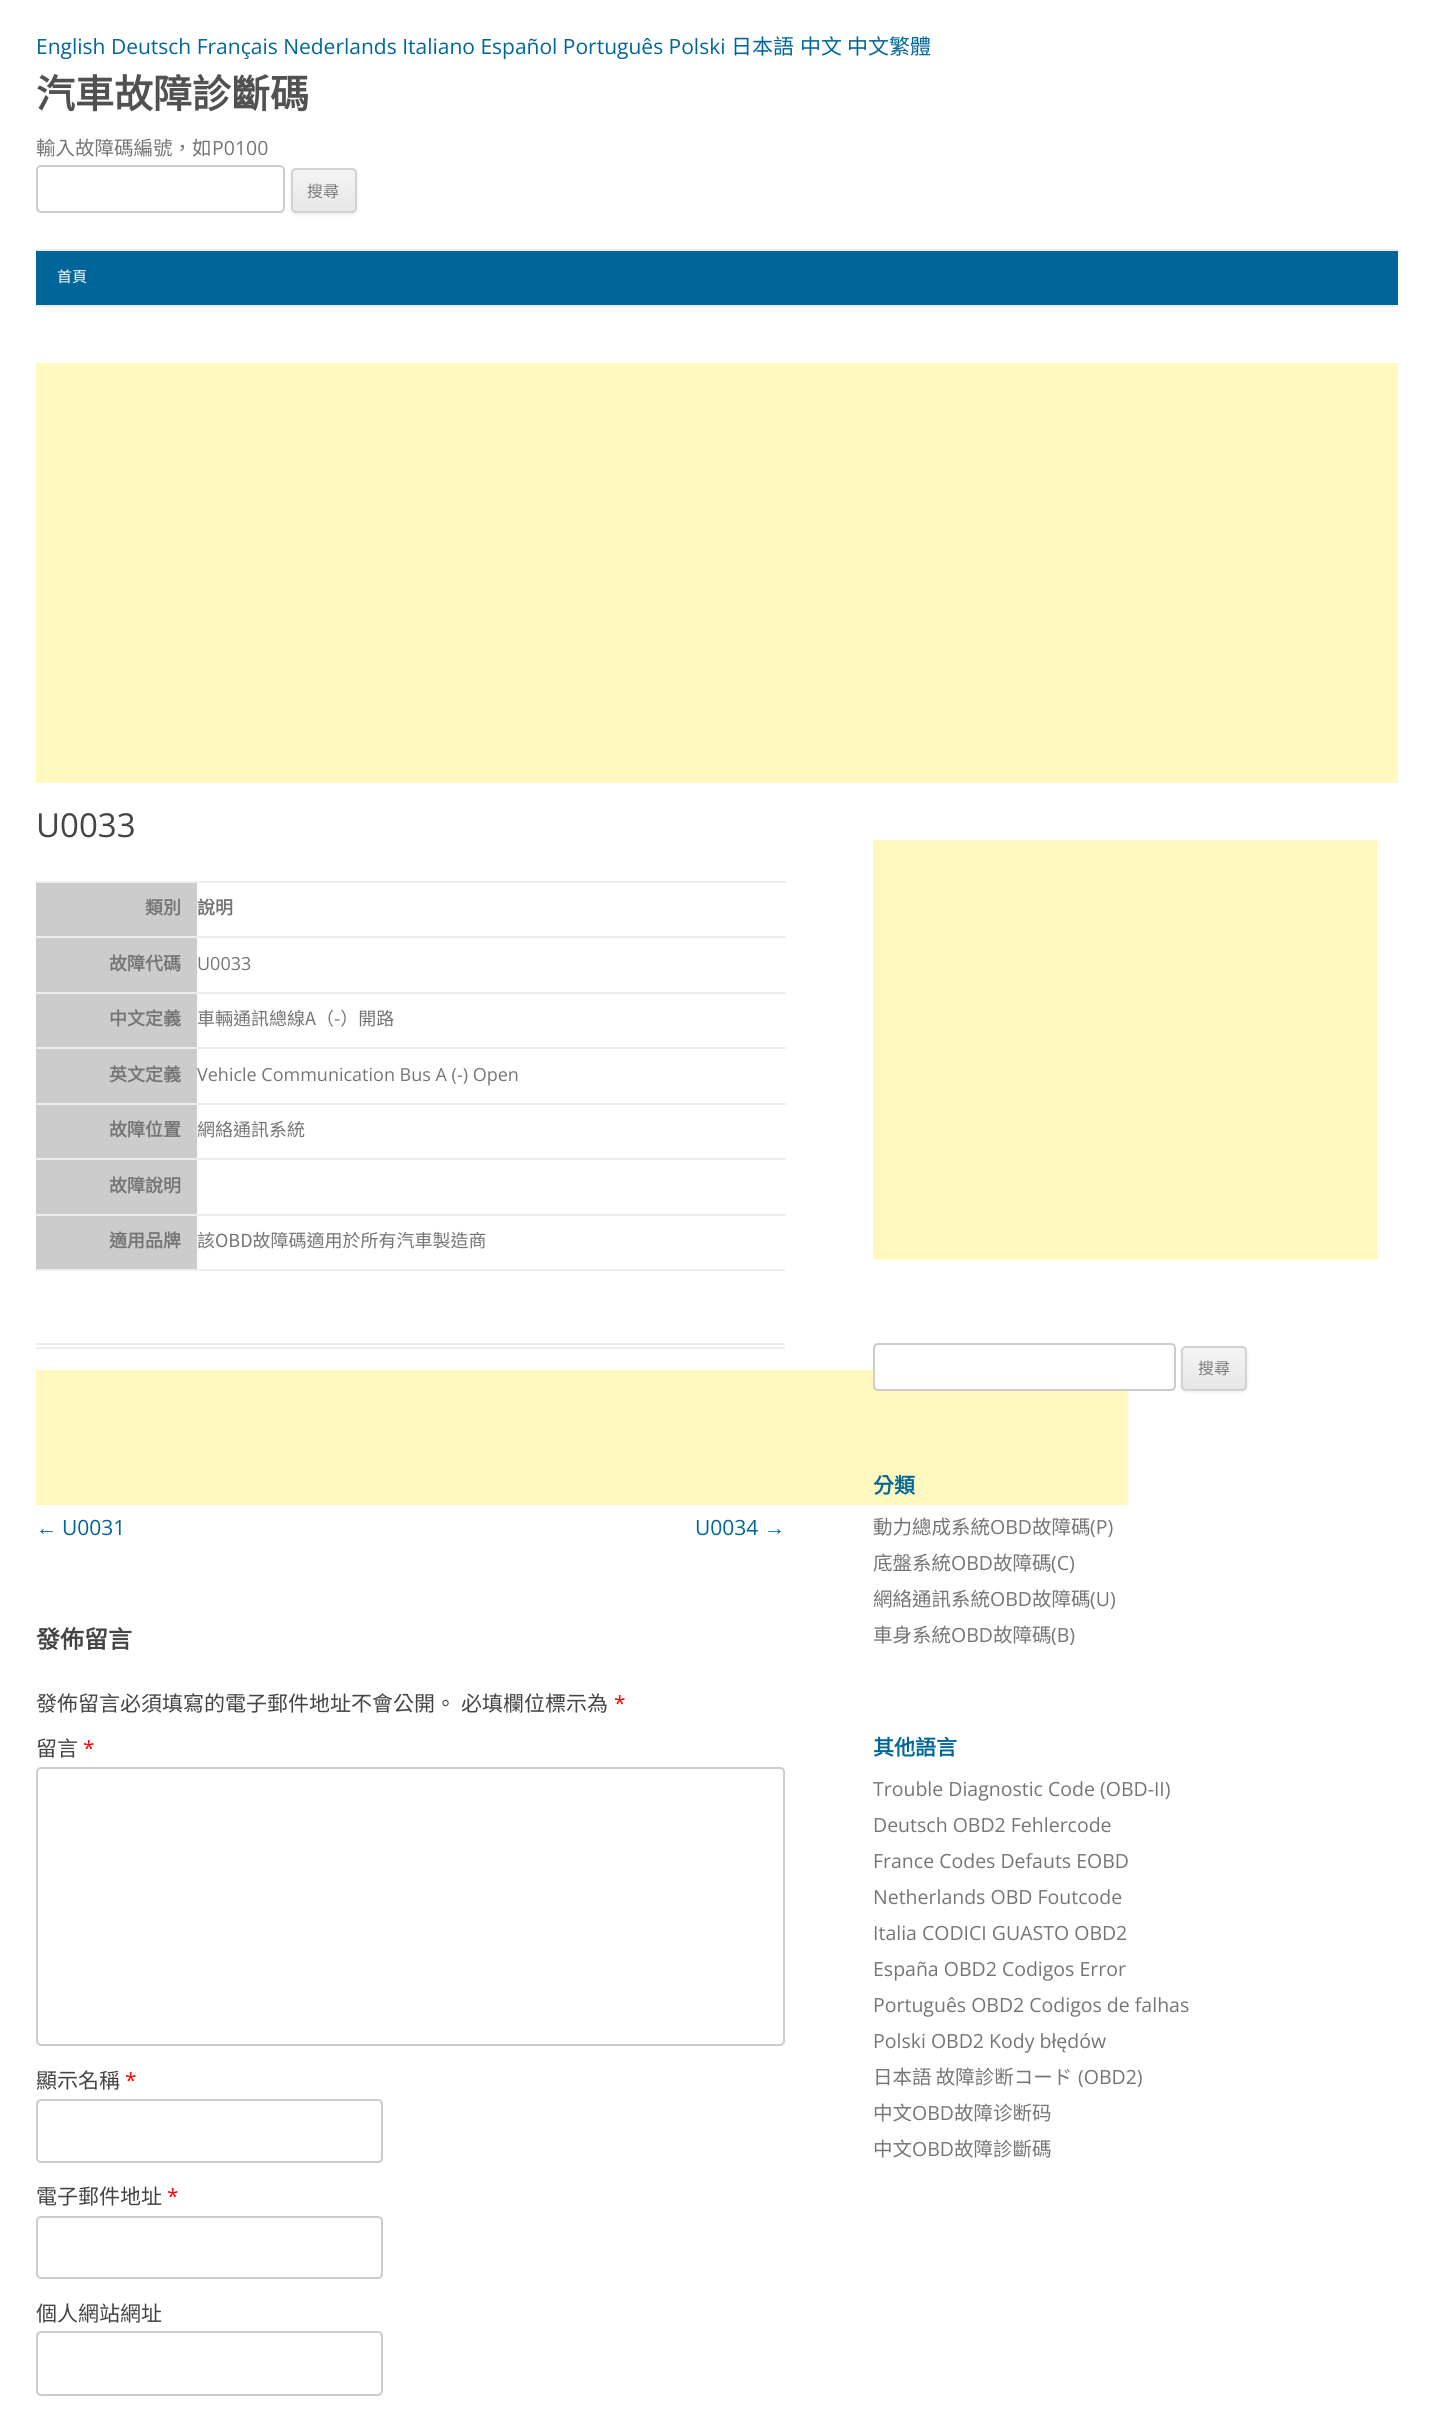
#include <cairo.h>
#include <math.h>
#include <stddef.h>


static void round_rect(cairo_t *cr, double x, double y, double w, double h, double r) {
    cairo_new_sub_path(cr);
    cairo_arc(cr, x + w - r, y + h - r, r, 0, M_PI / 2);
    cairo_arc(cr, x + r, y + h - r, r, M_PI / 2, M_PI);
    cairo_arc(cr, x + r, y + r, r, M_PI, 1.5 * M_PI);
    cairo_arc(cr, x + w - r, y + r, r, 1.5 * M_PI, 2 * M_PI);
    cairo_close_path(cr);
}

static void shadow(cairo_t *cr, double x, double y, double w, double h, double r, double blur, double alpha) {
    cairo_push_group_with_content(cr, CAIRO_CONTENT_ALPHA);
    cairo_set_operator(cr, CAIRO_OPERATOR_SOURCE);
    for (int i = 15; i >= -15 && fmin(w, h) + blur * i / 3 > 0; i -= 2) {
        double e = blur * i / 6;
        cairo_set_source_rgba(cr, 0, 0, 0, alpha * erfc((i - 1) / 8.5) / 2);
        round_rect(cr, x - e, y - e, w + 2 * e, h + 2 * e, fmax(0, fmin(r + e + blur * .6, fmin(w, h) / 2 + e)));
        cairo_fill(cr);
    }
    cairo_pattern_t *soft = cairo_pop_group(cr);
    cairo_mask(cr, soft);
    cairo_pattern_destroy(soft);
}

int main(void) {
    cairo_surface_t *surface = cairo_image_surface_create(CAIRO_FORMAT_RGB24, 1433, 2417);
    cairo_t *cr = cairo_create(surface);
    cairo_font_options_t *options = cairo_font_options_create();
    cairo_font_options_set_hint_metrics(options, CAIRO_HINT_METRICS_OFF);
    cairo_font_options_set_hint_style(options, CAIRO_HINT_STYLE_NONE);
    cairo_set_font_options(cr, options);
    cairo_set_miter_limit(cr, 4);
    cairo_pattern_t *gradient;
    cairo_set_source_rgb(cr, 1, 1, 1);
    cairo_paint(cr);
    cairo_select_font_face(cr, "Open Sans", CAIRO_FONT_SLANT_NORMAL, CAIRO_FONT_WEIGHT_NORMAL);
    cairo_set_font_size(cr, 21);
    cairo_set_source_rgb(cr, 0, 0.4, 0.6);
    cairo_move_to(cr, 36, 54);
    cairo_show_text(cr, "English Deutsch Français Nederlands Italiano Español Português Polski");
    cairo_select_font_face(cr, "Noto Sans CJK TC", CAIRO_FONT_SLANT_NORMAL, CAIRO_FONT_WEIGHT_NORMAL);
    cairo_move_to(cr, 731, 54);
    cairo_show_text(cr, "日本語");
    cairo_move_to(cr, 800, 54);
    cairo_show_text(cr, "中文");
    cairo_move_to(cr, 847, 54);
    cairo_show_text(cr, "中文繁體");
    cairo_select_font_face(cr, "Noto Sans CJK TC", CAIRO_FONT_SLANT_NORMAL, CAIRO_FONT_WEIGHT_BOLD);
    cairo_set_font_size(cr, 39);
    cairo_set_source_rgb(cr, 0.318, 0.318, 0.318);
    cairo_move_to(cr, 36, 108);
    cairo_show_text(cr, "汽車故障診斷碼");
    cairo_select_font_face(cr, "Noto Sans CJK TC", CAIRO_FONT_SLANT_NORMAL, CAIRO_FONT_WEIGHT_NORMAL);
    cairo_set_font_size(cr, 19.5);
    cairo_set_source_rgb(cr, 0.459, 0.459, 0.459);
    cairo_move_to(cr, 36, 155);
    cairo_show_text(cr, "輸入故障碼編號，如");
    cairo_select_font_face(cr, "Open Sans", CAIRO_FONT_SLANT_NORMAL, CAIRO_FONT_WEIGHT_NORMAL);
    cairo_move_to(cr, 212, 155);
    cairo_show_text(cr, "P0100");
    round_rect(cr, 37, 166, 247, 46, 4);
    cairo_set_source_rgb(cr, 0.8, 0.8, 0.8);
    cairo_stroke(cr);
    cairo_set_source_rgb(cr, 0.251, 0.251, 0.251);
    shadow(cr, 291, 170, 66, 45, 5, 1.5, 0.1);
    cairo_save(cr);
    round_rect(cr, 291, 168, 66, 45, 5);
    cairo_clip(cr);
    gradient = cairo_pattern_create_linear(324, 170, 324, 212);
    cairo_pattern_add_color_stop_rgba(gradient, 0, 0.957, 0.957, 0.957, 1);
    cairo_pattern_add_color_stop_rgba(gradient, 1, 0.902, 0.902, 0.902, 1);
    cairo_set_source(cr, gradient);
    cairo_pattern_destroy(gradient);
    cairo_rectangle(cr, 291, 170, 66, 42);
    cairo_fill(cr);
    cairo_restore(cr);
    round_rect(cr, 292, 169, 64, 43, 4);
    cairo_set_source_rgb(cr, 0.824, 0.824, 0.824);
    cairo_stroke(cr);
    cairo_select_font_face(cr, "Noto Sans CJK TC", CAIRO_FONT_SLANT_NORMAL, CAIRO_FONT_WEIGHT_NORMAL);
    cairo_set_font_size(cr, 16);
    cairo_set_source_rgb(cr, 0.486, 0.486, 0.486);
    cairo_move_to(cr, 307, 197);
    cairo_show_text(cr, "搜尋");
    cairo_set_source_rgb(cr, 0, 0.4, 0.6);
    cairo_rectangle(cr, 36, 251, 1362, 54);
    cairo_fill(cr);
    cairo_set_source_rgb(cr, 0.929, 0.929, 0.929);
    cairo_rectangle(cr, 36, 249, 1362, 2);
    cairo_fill(cr);
    cairo_rectangle(cr, 36, 305, 1362, 2);
    cairo_fill(cr);
    cairo_set_font_size(cr, 15);
    cairo_set_source_rgb(cr, 1, 1, 1);
    cairo_move_to(cr, 57, 282);
    cairo_show_text(cr, "首頁");
    cairo_set_source_rgb(cr, 1, 0.976, 0.753);
    cairo_rectangle(cr, 36, 363, 1362, 420);
    cairo_fill(cr);
    cairo_set_source_rgb(cr, 0.929, 0.929, 0.929);
    cairo_rectangle(cr, 36, 1343, 749, 2);
    cairo_fill(cr);
    cairo_rectangle(cr, 36, 1347, 749, 2);
    cairo_fill(cr);
    cairo_select_font_face(cr, "Open Sans", CAIRO_FONT_SLANT_NORMAL, CAIRO_FONT_WEIGHT_NORMAL);
    cairo_set_font_size(cr, 33);
    cairo_set_source_rgb(cr, 0.267, 0.267, 0.267);
    cairo_move_to(cr, 36, 837);
    cairo_show_text(cr, "U0033");
    cairo_set_source_rgb(cr, 0.929, 0.929, 0.929);
    cairo_rectangle(cr, 36, 1269, 749, 2);
    cairo_fill(cr);
    cairo_set_source_rgb(cr, 0.8, 0.8, 0.8);
    cairo_rectangle(cr, 36, 883, 161, 53);
    cairo_fill(cr);
    cairo_select_font_face(cr, "Noto Sans CJK TC", CAIRO_FONT_SLANT_NORMAL, CAIRO_FONT_WEIGHT_BOLD);
    cairo_set_font_size(cr, 18);
    cairo_set_source_rgb(cr, 0.459, 0.459, 0.459);
    cairo_move_to(cr, 145, 914);
    cairo_show_text(cr, "類別");
    cairo_set_source_rgb(cr, 0.929, 0.929, 0.929);
    cairo_rectangle(cr, 36, 881, 750, 2);
    cairo_fill(cr);
    cairo_set_source_rgb(cr, 0.459, 0.459, 0.459);
    cairo_move_to(cr, 197, 914);
    cairo_show_text(cr, "說明");
    cairo_set_source_rgb(cr, 0.8, 0.8, 0.8);
    cairo_rectangle(cr, 36, 938, 161, 54);
    cairo_fill(cr);
    cairo_set_source_rgb(cr, 0.459, 0.459, 0.459);
    cairo_move_to(cr, 109, 970);
    cairo_show_text(cr, "故障代碼");
    cairo_set_source_rgb(cr, 0.929, 0.929, 0.929);
    cairo_rectangle(cr, 36, 936, 750, 2);
    cairo_fill(cr);
    cairo_select_font_face(cr, "Open Sans", CAIRO_FONT_SLANT_NORMAL, CAIRO_FONT_WEIGHT_NORMAL);
    cairo_set_source_rgb(cr, 0.459, 0.459, 0.459);
    cairo_move_to(cr, 197, 970);
    cairo_show_text(cr, "U0033");
    cairo_set_source_rgb(cr, 0.8, 0.8, 0.8);
    cairo_rectangle(cr, 36, 994, 161, 53);
    cairo_fill(cr);
    cairo_select_font_face(cr, "Noto Sans CJK TC", CAIRO_FONT_SLANT_NORMAL, CAIRO_FONT_WEIGHT_BOLD);
    cairo_set_source_rgb(cr, 0.459, 0.459, 0.459);
    cairo_move_to(cr, 109, 1025);
    cairo_show_text(cr, "中文定義");
    cairo_set_source_rgb(cr, 0.929, 0.929, 0.929);
    cairo_rectangle(cr, 36, 992, 750, 2);
    cairo_fill(cr);
    cairo_select_font_face(cr, "Noto Sans CJK TC", CAIRO_FONT_SLANT_NORMAL, CAIRO_FONT_WEIGHT_NORMAL);
    cairo_set_source_rgb(cr, 0.459, 0.459, 0.459);
    cairo_move_to(cr, 197, 1025);
    cairo_show_text(cr, "車輛通訊總線A（-）開路");
    cairo_set_source_rgb(cr, 0.8, 0.8, 0.8);
    cairo_rectangle(cr, 36, 1049, 161, 54);
    cairo_fill(cr);
    cairo_select_font_face(cr, "Noto Sans CJK TC", CAIRO_FONT_SLANT_NORMAL, CAIRO_FONT_WEIGHT_BOLD);
    cairo_set_source_rgb(cr, 0.459, 0.459, 0.459);
    cairo_move_to(cr, 109, 1081);
    cairo_show_text(cr, "英文定義");
    cairo_set_source_rgb(cr, 0.929, 0.929, 0.929);
    cairo_rectangle(cr, 36, 1047, 750, 2);
    cairo_fill(cr);
    cairo_select_font_face(cr, "Open Sans", CAIRO_FONT_SLANT_NORMAL, CAIRO_FONT_WEIGHT_NORMAL);
    cairo_set_source_rgb(cr, 0.459, 0.459, 0.459);
    cairo_move_to(cr, 197, 1081);
    cairo_show_text(cr, "Vehicle Communication Bus A (-) Open");
    cairo_set_source_rgb(cr, 0.8, 0.8, 0.8);
    cairo_rectangle(cr, 36, 1105, 161, 53);
    cairo_fill(cr);
    cairo_select_font_face(cr, "Noto Sans CJK TC", CAIRO_FONT_SLANT_NORMAL, CAIRO_FONT_WEIGHT_BOLD);
    cairo_set_source_rgb(cr, 0.459, 0.459, 0.459);
    cairo_move_to(cr, 109, 1136);
    cairo_show_text(cr, "故障位置");
    cairo_set_source_rgb(cr, 0.929, 0.929, 0.929);
    cairo_rectangle(cr, 36, 1103, 750, 2);
    cairo_fill(cr);
    cairo_select_font_face(cr, "Noto Sans CJK TC", CAIRO_FONT_SLANT_NORMAL, CAIRO_FONT_WEIGHT_NORMAL);
    cairo_set_source_rgb(cr, 0.459, 0.459, 0.459);
    cairo_move_to(cr, 197, 1136);
    cairo_show_text(cr, "網絡通訊系統");
    cairo_set_source_rgb(cr, 0.929, 0.929, 0.929);
    cairo_rectangle(cr, 36, 1158, 750, 2);
    cairo_fill(cr);
    cairo_set_source_rgb(cr, 0.8, 0.8, 0.8);
    cairo_rectangle(cr, 36, 1160, 161, 54);
    cairo_fill(cr);
    cairo_select_font_face(cr, "Noto Sans CJK TC", CAIRO_FONT_SLANT_NORMAL, CAIRO_FONT_WEIGHT_BOLD);
    cairo_set_source_rgb(cr, 0.459, 0.459, 0.459);
    cairo_move_to(cr, 109, 1192);
    cairo_show_text(cr, "故障說明");
    cairo_set_source_rgb(cr, 0.8, 0.8, 0.8);
    cairo_rectangle(cr, 36, 1216, 161, 53);
    cairo_fill(cr);
    cairo_set_source_rgb(cr, 0.459, 0.459, 0.459);
    cairo_move_to(cr, 109, 1247);
    cairo_show_text(cr, "適用品牌");
    cairo_set_source_rgb(cr, 0.929, 0.929, 0.929);
    cairo_rectangle(cr, 36, 1214, 750, 2);
    cairo_fill(cr);
    cairo_select_font_face(cr, "Noto Sans CJK TC", CAIRO_FONT_SLANT_NORMAL, CAIRO_FONT_WEIGHT_NORMAL);
    cairo_set_source_rgb(cr, 0.459, 0.459, 0.459);
    cairo_move_to(cr, 197, 1247);
    cairo_show_text(cr, "該OBD故障碼適用於所有汽車製造商");
    cairo_set_source_rgb(cr, 1, 0.976, 0.753);
    cairo_rectangle(cr, 36, 1370, 1092, 135);
    cairo_fill(cr);
    cairo_select_font_face(cr, "Liberation Sans", CAIRO_FONT_SLANT_NORMAL, CAIRO_FONT_WEIGHT_NORMAL);
    cairo_set_font_size(cr, 21);
    cairo_set_source_rgb(cr, 0, 0.4, 0.6);
    cairo_move_to(cr, 36, 1535);
    cairo_show_text(cr, "←");
    cairo_select_font_face(cr, "Open Sans", CAIRO_FONT_SLANT_NORMAL, CAIRO_FONT_WEIGHT_NORMAL);
    cairo_move_to(cr, 62, 1535);
    cairo_show_text(cr, "U0031");
    cairo_move_to(cr, 695, 1535);
    cairo_show_text(cr, "U0034");
    cairo_select_font_face(cr, "Liberation Sans", CAIRO_FONT_SLANT_NORMAL, CAIRO_FONT_WEIGHT_NORMAL);
    cairo_move_to(cr, 764, 1535);
    cairo_show_text(cr, "→");
    cairo_select_font_face(cr, "Noto Sans CJK TC", CAIRO_FONT_SLANT_NORMAL, CAIRO_FONT_WEIGHT_BOLD);
    cairo_set_font_size(cr, 24);
    cairo_set_source_rgb(cr, 0.267, 0.267, 0.267);
    cairo_move_to(cr, 36, 1648);
    cairo_show_text(cr, "發佈留言");
    cairo_select_font_face(cr, "Noto Sans CJK TC", CAIRO_FONT_SLANT_NORMAL, CAIRO_FONT_WEIGHT_NORMAL);
    cairo_set_font_size(cr, 21);
    cairo_move_to(cr, 36, 1711);
    cairo_show_text(cr, "發佈留言必須填寫的電子郵件地址不會公開。");
    cairo_move_to(cr, 461, 1711);
    cairo_show_text(cr, "必填欄位標示為");
    cairo_select_font_face(cr, "Open Sans", CAIRO_FONT_SLANT_NORMAL, CAIRO_FONT_WEIGHT_NORMAL);
    cairo_set_source_rgb(cr, 1, 0, 0);
    cairo_move_to(cr, 614, 1711);
    cairo_show_text(cr, "*");
    cairo_select_font_face(cr, "Noto Sans CJK TC", CAIRO_FONT_SLANT_NORMAL, CAIRO_FONT_WEIGHT_NORMAL);
    cairo_set_source_rgb(cr, 0.267, 0.267, 0.267);
    cairo_move_to(cr, 36, 1756);
    cairo_show_text(cr, "留言");
    cairo_select_font_face(cr, "Open Sans", CAIRO_FONT_SLANT_NORMAL, CAIRO_FONT_WEIGHT_NORMAL);
    cairo_set_source_rgb(cr, 1, 0, 0);
    cairo_move_to(cr, 83, 1756);
    cairo_show_text(cr, "*");
    round_rect(cr, 37, 1768, 747, 277, 4);
    cairo_set_source_rgb(cr, 0.8, 0.8, 0.8);
    cairo_stroke(cr);
    cairo_select_font_face(cr, "Noto Sans CJK TC", CAIRO_FONT_SLANT_NORMAL, CAIRO_FONT_WEIGHT_NORMAL);
    cairo_set_source_rgb(cr, 0.267, 0.267, 0.267);
    cairo_move_to(cr, 36, 2088);
    cairo_show_text(cr, "顯示名稱");
    cairo_select_font_face(cr, "Open Sans", CAIRO_FONT_SLANT_NORMAL, CAIRO_FONT_WEIGHT_NORMAL);
    cairo_set_source_rgb(cr, 1, 0, 0);
    cairo_move_to(cr, 125, 2088);
    cairo_show_text(cr, "*");
    round_rect(cr, 37, 2100, 345, 62, 4);
    cairo_set_source_rgb(cr, 0.8, 0.8, 0.8);
    cairo_stroke(cr);
    cairo_select_font_face(cr, "Noto Sans CJK TC", CAIRO_FONT_SLANT_NORMAL, CAIRO_FONT_WEIGHT_NORMAL);
    cairo_set_source_rgb(cr, 0.267, 0.267, 0.267);
    cairo_move_to(cr, 36, 2204);
    cairo_show_text(cr, "電子郵件地址");
    cairo_select_font_face(cr, "Open Sans", CAIRO_FONT_SLANT_NORMAL, CAIRO_FONT_WEIGHT_NORMAL);
    cairo_set_source_rgb(cr, 1, 0, 0);
    cairo_move_to(cr, 167, 2204);
    cairo_show_text(cr, "*");
    round_rect(cr, 37, 2217, 345, 61, 4);
    cairo_set_source_rgb(cr, 0.8, 0.8, 0.8);
    cairo_stroke(cr);
    cairo_select_font_face(cr, "Noto Sans CJK TC", CAIRO_FONT_SLANT_NORMAL, CAIRO_FONT_WEIGHT_NORMAL);
    cairo_set_source_rgb(cr, 0.267, 0.267, 0.267);
    cairo_move_to(cr, 36, 2321);
    cairo_show_text(cr, "個人網站網址");
    round_rect(cr, 37, 2332, 345, 63, 4);
    cairo_set_source_rgb(cr, 0.8, 0.8, 0.8);
    cairo_stroke(cr);
    cairo_set_source_rgb(cr, 1, 0.976, 0.753);
    cairo_rectangle(cr, 873, 840, 504, 420);
    cairo_fill(cr);
    cairo_set_source_rgb(cr, 1, 1, 1);
    round_rect(cr, 874, 1344, 301, 46, 4);
    cairo_fill_preserve(cr);
    cairo_set_source_rgb(cr, 0.8, 0.8, 0.8);
    cairo_stroke(cr);
    cairo_set_source_rgb(cr, 0.251, 0.251, 0.251);
    shadow(cr, 1181, 1347, 66, 45, 5, 1.5, 0.1);
    cairo_save(cr);
    round_rect(cr, 1181, 1346, 66, 45, 5);
    cairo_clip(cr);
    gradient = cairo_pattern_create_linear(1214, 1347, 1214, 1389);
    cairo_pattern_add_color_stop_rgba(gradient, 0, 0.957, 0.957, 0.957, 1);
    cairo_pattern_add_color_stop_rgba(gradient, 1, 0.902, 0.902, 0.902, 1);
    cairo_set_source(cr, gradient);
    cairo_pattern_destroy(gradient);
    cairo_rectangle(cr, 1181, 1347, 66, 42);
    cairo_fill(cr);
    cairo_restore(cr);
    round_rect(cr, 1182, 1347, 64, 43, 4);
    cairo_set_source_rgb(cr, 0.824, 0.824, 0.824);
    cairo_stroke(cr);
    cairo_set_font_size(cr, 16);
    cairo_set_source_rgb(cr, 0.486, 0.486, 0.486);
    cairo_move_to(cr, 1198, 1374);
    cairo_show_text(cr, "搜尋");
    cairo_select_font_face(cr, "Noto Sans CJK TC", CAIRO_FONT_SLANT_NORMAL, CAIRO_FONT_WEIGHT_BOLD);
    cairo_set_font_size(cr, 21);
    cairo_set_source_rgb(cr, 0, 0.4, 0.6);
    cairo_move_to(cr, 873, 1493);
    cairo_show_text(cr, "分類");
    cairo_select_font_face(cr, "Noto Sans CJK TC", CAIRO_FONT_SLANT_NORMAL, CAIRO_FONT_WEIGHT_NORMAL);
    cairo_set_font_size(cr, 19.5);
    cairo_set_source_rgb(cr, 0.459, 0.459, 0.459);
    cairo_move_to(cr, 873, 1534);
    cairo_show_text(cr, "動力總成系統");
    cairo_select_font_face(cr, "Open Sans", CAIRO_FONT_SLANT_NORMAL, CAIRO_FONT_WEIGHT_NORMAL);
    cairo_move_to(cr, 990, 1534);
    cairo_show_text(cr, "OBD");
    cairo_select_font_face(cr, "Noto Sans CJK TC", CAIRO_FONT_SLANT_NORMAL, CAIRO_FONT_WEIGHT_NORMAL);
    cairo_move_to(cr, 1032, 1534);
    cairo_show_text(cr, "故障碼");
    cairo_select_font_face(cr, "Open Sans", CAIRO_FONT_SLANT_NORMAL, CAIRO_FONT_WEIGHT_NORMAL);
    cairo_move_to(cr, 1090, 1534);
    cairo_show_text(cr, "(P)");
    cairo_select_font_face(cr, "Noto Sans CJK TC", CAIRO_FONT_SLANT_NORMAL, CAIRO_FONT_WEIGHT_NORMAL);
    cairo_move_to(cr, 873, 1570);
    cairo_show_text(cr, "底盤系統");
    cairo_select_font_face(cr, "Open Sans", CAIRO_FONT_SLANT_NORMAL, CAIRO_FONT_WEIGHT_NORMAL);
    cairo_move_to(cr, 951, 1570);
    cairo_show_text(cr, "OBD");
    cairo_select_font_face(cr, "Noto Sans CJK TC", CAIRO_FONT_SLANT_NORMAL, CAIRO_FONT_WEIGHT_NORMAL);
    cairo_move_to(cr, 993, 1570);
    cairo_show_text(cr, "故障碼");
    cairo_select_font_face(cr, "Open Sans", CAIRO_FONT_SLANT_NORMAL, CAIRO_FONT_WEIGHT_NORMAL);
    cairo_move_to(cr, 1051, 1570);
    cairo_show_text(cr, "(C)");
    cairo_select_font_face(cr, "Noto Sans CJK TC", CAIRO_FONT_SLANT_NORMAL, CAIRO_FONT_WEIGHT_NORMAL);
    cairo_move_to(cr, 873, 1606);
    cairo_show_text(cr, "網絡通訊系統");
    cairo_select_font_face(cr, "Open Sans", CAIRO_FONT_SLANT_NORMAL, CAIRO_FONT_WEIGHT_NORMAL);
    cairo_move_to(cr, 990, 1606);
    cairo_show_text(cr, "OBD");
    cairo_select_font_face(cr, "Noto Sans CJK TC", CAIRO_FONT_SLANT_NORMAL, CAIRO_FONT_WEIGHT_NORMAL);
    cairo_move_to(cr, 1032, 1606);
    cairo_show_text(cr, "故障碼");
    cairo_select_font_face(cr, "Open Sans", CAIRO_FONT_SLANT_NORMAL, CAIRO_FONT_WEIGHT_NORMAL);
    cairo_move_to(cr, 1090, 1606);
    cairo_show_text(cr, "(U)");
    cairo_select_font_face(cr, "Noto Sans CJK TC", CAIRO_FONT_SLANT_NORMAL, CAIRO_FONT_WEIGHT_NORMAL);
    cairo_move_to(cr, 873, 1642);
    cairo_show_text(cr, "車身系統");
    cairo_select_font_face(cr, "Open Sans", CAIRO_FONT_SLANT_NORMAL, CAIRO_FONT_WEIGHT_NORMAL);
    cairo_move_to(cr, 951, 1642);
    cairo_show_text(cr, "OBD");
    cairo_select_font_face(cr, "Noto Sans CJK TC", CAIRO_FONT_SLANT_NORMAL, CAIRO_FONT_WEIGHT_NORMAL);
    cairo_move_to(cr, 993, 1642);
    cairo_show_text(cr, "故障碼");
    cairo_select_font_face(cr, "Open Sans", CAIRO_FONT_SLANT_NORMAL, CAIRO_FONT_WEIGHT_NORMAL);
    cairo_move_to(cr, 1051, 1642);
    cairo_show_text(cr, "(B)");
    cairo_select_font_face(cr, "Noto Sans CJK TC", CAIRO_FONT_SLANT_NORMAL, CAIRO_FONT_WEIGHT_BOLD);
    cairo_set_font_size(cr, 21);
    cairo_set_source_rgb(cr, 0, 0.4, 0.6);
    cairo_move_to(cr, 873, 1755);
    cairo_show_text(cr, "其他語言");
    cairo_select_font_face(cr, "Open Sans", CAIRO_FONT_SLANT_NORMAL, CAIRO_FONT_WEIGHT_NORMAL);
    cairo_set_font_size(cr, 19.5);
    cairo_set_source_rgb(cr, 0.459, 0.459, 0.459);
    cairo_move_to(cr, 873, 1796);
    cairo_show_text(cr, "Trouble Diagnostic Code (OBD-II)");
    cairo_move_to(cr, 873, 1832);
    cairo_show_text(cr, "Deutsch OBD2 Fehlercode");
    cairo_move_to(cr, 873, 1868);
    cairo_show_text(cr, "France Codes Defauts EOBD");
    cairo_move_to(cr, 873, 1904);
    cairo_show_text(cr, "Netherlands OBD Foutcode");
    cairo_move_to(cr, 873, 1940);
    cairo_show_text(cr, "Italia CODICI GUASTO OBD2");
    cairo_move_to(cr, 873, 1976);
    cairo_show_text(cr, "España OBD2 Codigos Error");
    cairo_move_to(cr, 873, 2012);
    cairo_show_text(cr, "Português OBD2 Codigos de falhas");
    cairo_move_to(cr, 873, 2048);
    cairo_show_text(cr, "Polski OBD2 Kody błędów");
    cairo_select_font_face(cr, "Noto Sans CJK TC", CAIRO_FONT_SLANT_NORMAL, CAIRO_FONT_WEIGHT_NORMAL);
    cairo_move_to(cr, 873, 2084);
    cairo_show_text(cr, "日本語 故障診断コード");
    cairo_select_font_face(cr, "Open Sans", CAIRO_FONT_SLANT_NORMAL, CAIRO_FONT_WEIGHT_NORMAL);
    cairo_move_to(cr, 1078, 2084);
    cairo_show_text(cr, "(OBD2)");
    cairo_select_font_face(cr, "Noto Sans CJK TC", CAIRO_FONT_SLANT_NORMAL, CAIRO_FONT_WEIGHT_NORMAL);
    cairo_move_to(cr, 873, 2120);
    cairo_show_text(cr, "中文");
    cairo_select_font_face(cr, "Open Sans", CAIRO_FONT_SLANT_NORMAL, CAIRO_FONT_WEIGHT_NORMAL);
    cairo_move_to(cr, 912, 2120);
    cairo_show_text(cr, "OBD");
    cairo_select_font_face(cr, "Noto Sans CJK TC", CAIRO_FONT_SLANT_NORMAL, CAIRO_FONT_WEIGHT_NORMAL);
    cairo_move_to(cr, 954, 2120);
    cairo_show_text(cr, "故障诊断码");
    cairo_move_to(cr, 873, 2156);
    cairo_show_text(cr, "中文");
    cairo_select_font_face(cr, "Open Sans", CAIRO_FONT_SLANT_NORMAL, CAIRO_FONT_WEIGHT_NORMAL);
    cairo_move_to(cr, 912, 2156);
    cairo_show_text(cr, "OBD");
    cairo_select_font_face(cr, "Noto Sans CJK TC", CAIRO_FONT_SLANT_NORMAL, CAIRO_FONT_WEIGHT_NORMAL);
    cairo_move_to(cr, 954, 2156);
    cairo_show_text(cr, "故障診斷碼");
    cairo_surface_write_to_png(surface, "page.png");
    cairo_font_options_destroy(options);
    cairo_destroy(cr);
    cairo_surface_destroy(surface);
    return 0;
}
